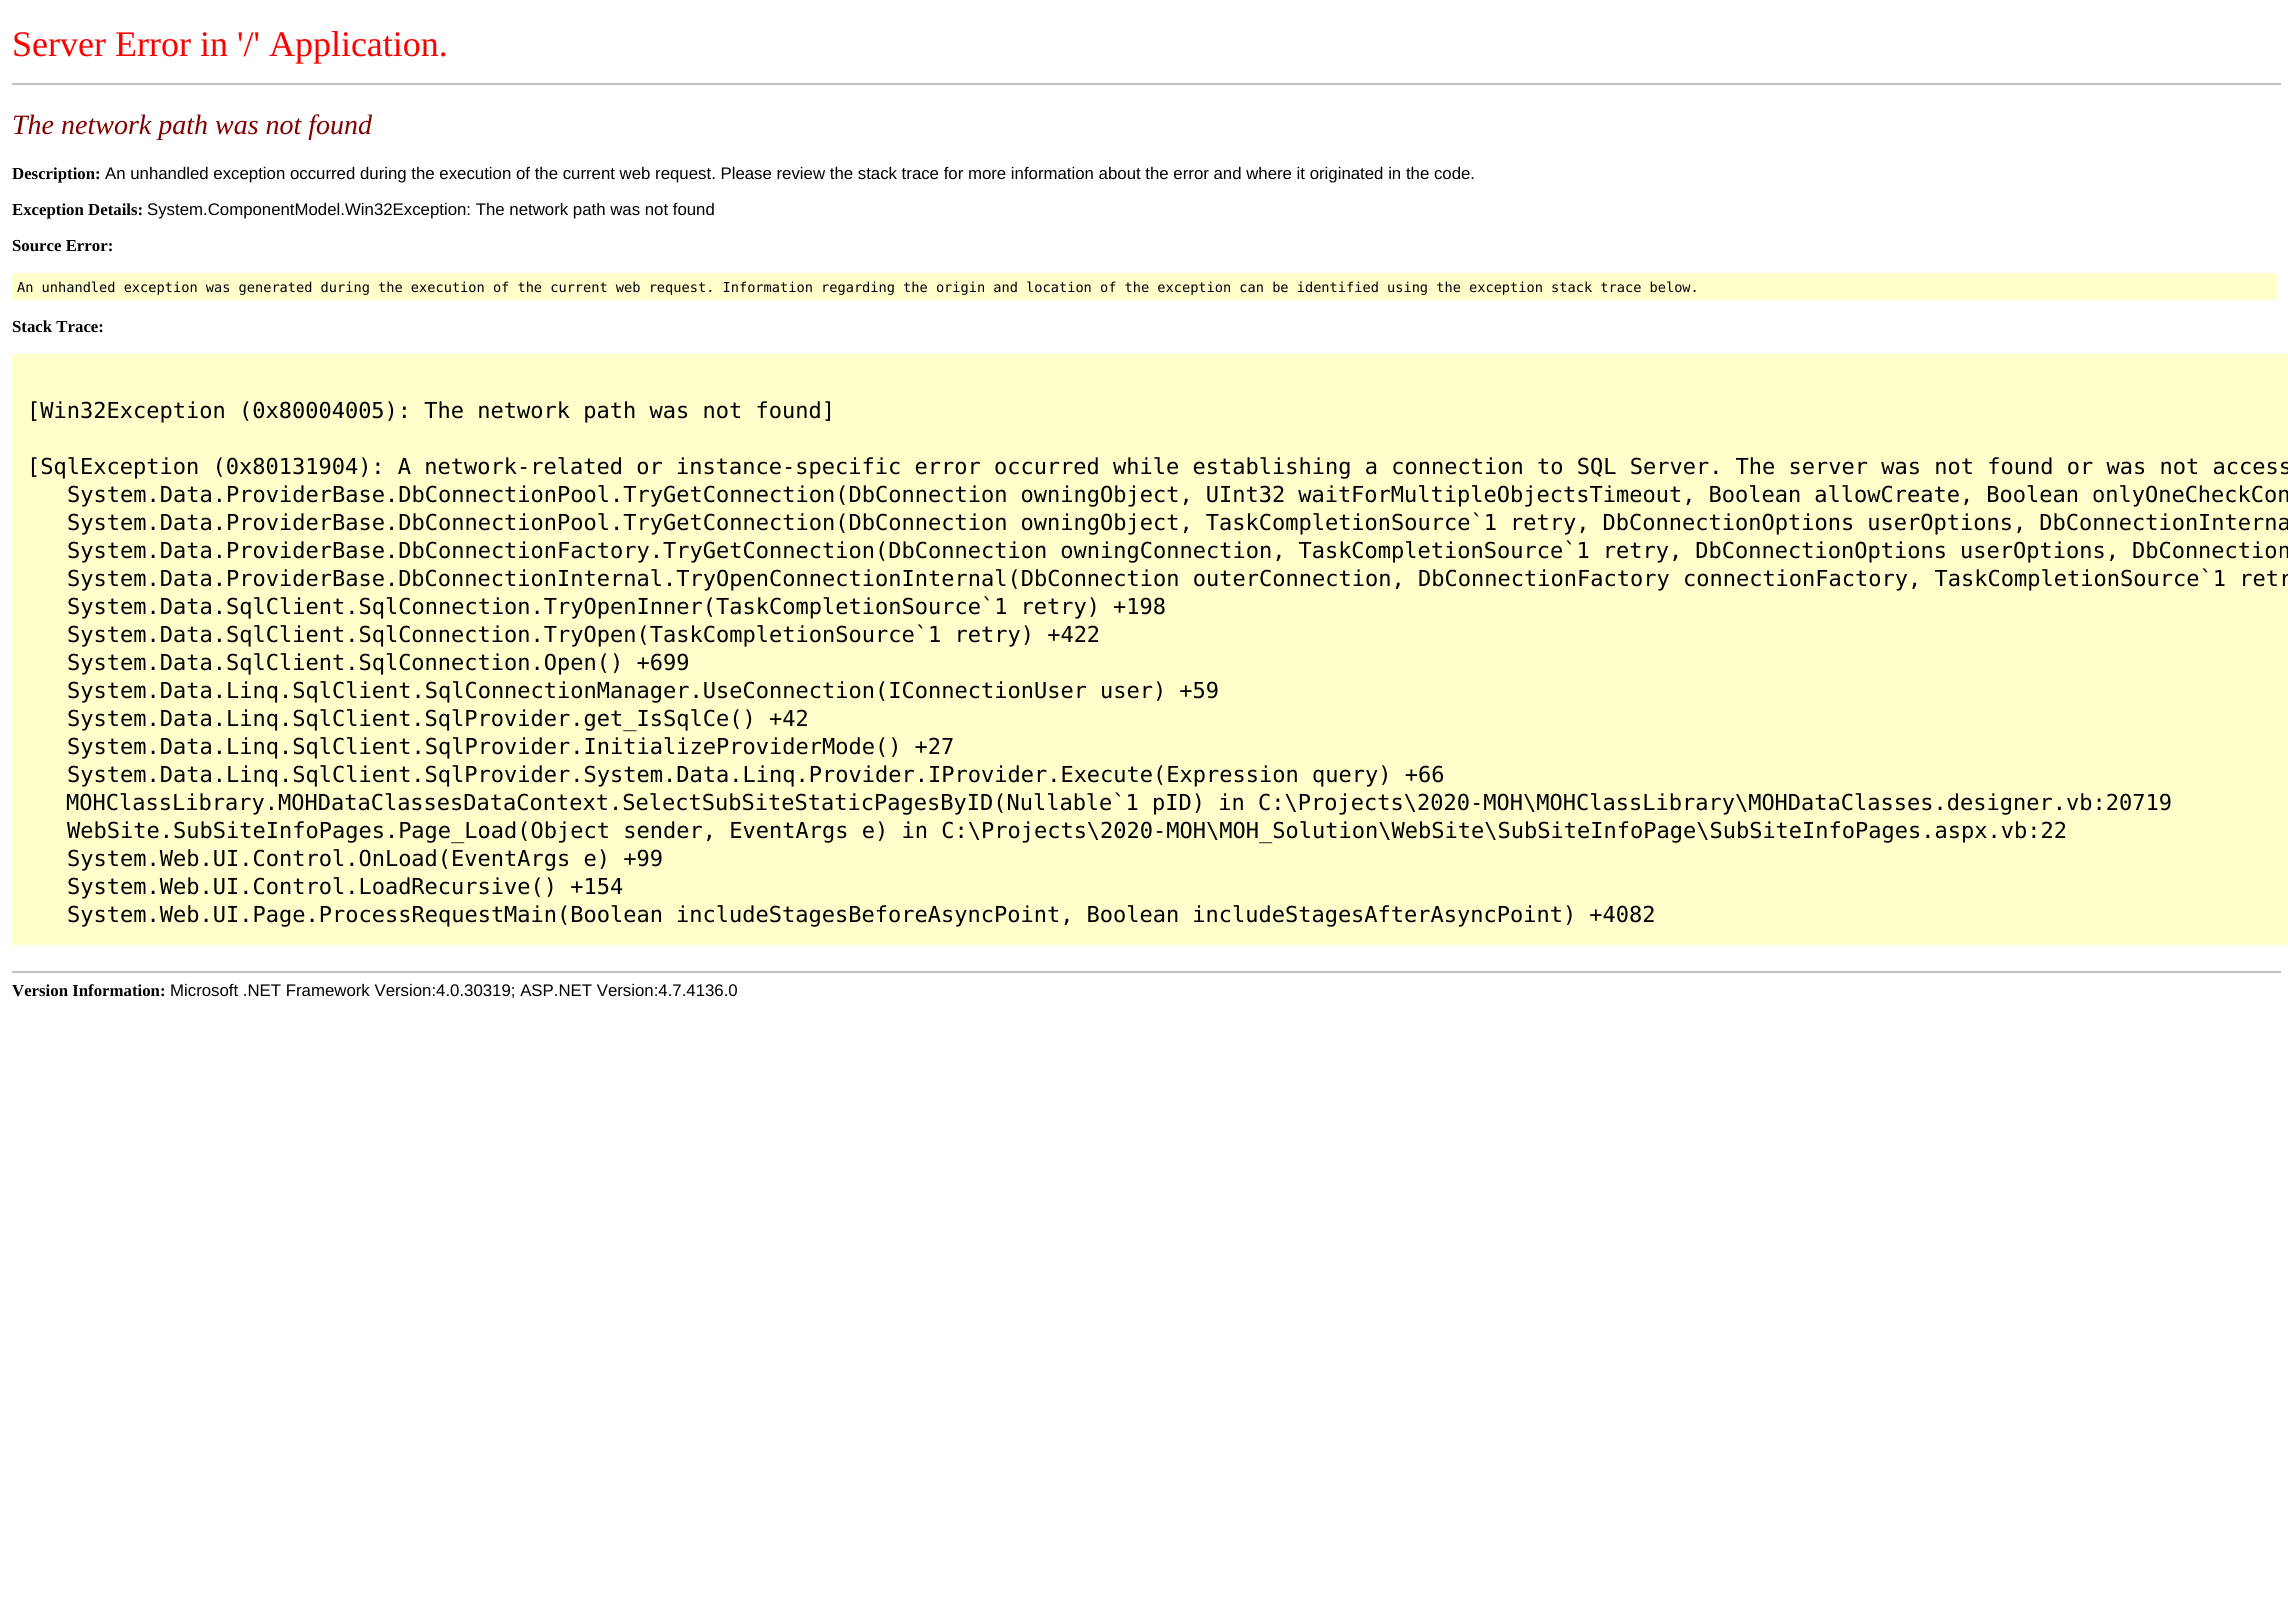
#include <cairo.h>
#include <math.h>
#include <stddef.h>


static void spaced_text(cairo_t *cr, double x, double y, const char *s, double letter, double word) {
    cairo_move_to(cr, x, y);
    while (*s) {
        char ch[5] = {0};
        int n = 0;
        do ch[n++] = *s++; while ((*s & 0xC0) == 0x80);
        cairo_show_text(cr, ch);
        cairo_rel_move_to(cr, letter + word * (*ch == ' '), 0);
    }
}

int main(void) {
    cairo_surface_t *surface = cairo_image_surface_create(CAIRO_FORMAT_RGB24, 2288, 1603);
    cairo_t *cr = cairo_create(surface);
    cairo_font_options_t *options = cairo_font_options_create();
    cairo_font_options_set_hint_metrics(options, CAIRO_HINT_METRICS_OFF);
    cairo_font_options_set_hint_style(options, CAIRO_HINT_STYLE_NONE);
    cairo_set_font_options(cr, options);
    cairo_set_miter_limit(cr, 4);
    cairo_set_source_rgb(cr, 1, 1, 1);
    cairo_paint(cr);
    cairo_select_font_face(cr, "Liberation Serif", CAIRO_FONT_SLANT_NORMAL, CAIRO_FONT_WEIGHT_NORMAL);
    cairo_set_font_size(cr, 36);
    cairo_set_source_rgb(cr, 1, 0, 0);
    cairo_move_to(cr, 12, 56);
    cairo_show_text(cr, "Server Error in '/' Application.");
    cairo_set_source_rgb(cr, 0.753, 0.753, 0.753);
    cairo_rectangle(cr, 12, 83, 2269, 2);
    cairo_fill(cr);
    cairo_select_font_face(cr, "Liberation Serif", CAIRO_FONT_SLANT_ITALIC, CAIRO_FONT_WEIGHT_NORMAL);
    cairo_set_font_size(cr, 28);
    cairo_set_source_rgb(cr, 0.502, 0, 0);
    cairo_move_to(cr, 12, 134);
    cairo_show_text(cr, "The network path was not found");
    cairo_select_font_face(cr, "Liberation Serif", CAIRO_FONT_SLANT_NORMAL, CAIRO_FONT_WEIGHT_BOLD);
    cairo_set_font_size(cr, 16.8);
    cairo_set_source_rgb(cr, 0, 0, 0);
    cairo_move_to(cr, 12, 179);
    cairo_show_text(cr, "Description:");
    cairo_select_font_face(cr, "Liberation Sans", CAIRO_FONT_SLANT_NORMAL, CAIRO_FONT_WEIGHT_NORMAL);
    cairo_move_to(cr, 105, 179);
    cairo_show_text(cr, "An unhandled exception occurred during the execution of the current web request. Please review the stack trace for more information about the error and where it originated in the code.");
    cairo_select_font_face(cr, "Liberation Serif", CAIRO_FONT_SLANT_NORMAL, CAIRO_FONT_WEIGHT_BOLD);
    cairo_move_to(cr, 12, 215);
    cairo_show_text(cr, "Exception Details:");
    cairo_select_font_face(cr, "Liberation Sans", CAIRO_FONT_SLANT_NORMAL, CAIRO_FONT_WEIGHT_NORMAL);
    cairo_move_to(cr, 147, 215);
    cairo_show_text(cr, "System.ComponentModel.Win32Exception: The network path was not found");
    cairo_select_font_face(cr, "Liberation Serif", CAIRO_FONT_SLANT_NORMAL, CAIRO_FONT_WEIGHT_BOLD);
    cairo_move_to(cr, 12, 251);
    cairo_show_text(cr, "Source Error:");
    cairo_set_source_rgb(cr, 1, 1, 0.8);
    cairo_rectangle(cr, 12, 273, 2265, 27);
    cairo_fill(cr);
    cairo_select_font_face(cr, "DejaVu Sans Mono", CAIRO_FONT_SLANT_NORMAL, CAIRO_FONT_WEIGHT_NORMAL);
    cairo_set_font_size(cr, 13.65);
    cairo_set_source_rgb(cr, 0, 0, 0);
    spaced_text(cr, 17, 292, "An unhandled exception was generated during the execution of the current web request. Information regarding the origin and location of the exception can be identified using the exception stack trace below.", 0, -0.1);
    cairo_select_font_face(cr, "Liberation Serif", CAIRO_FONT_SLANT_NORMAL, CAIRO_FONT_WEIGHT_BOLD);
    cairo_set_font_size(cr, 16.8);
    cairo_move_to(cr, 12, 332);
    cairo_show_text(cr, "Stack Trace:");
    cairo_set_source_rgb(cr, 1, 1, 0.8);
    cairo_rectangle(cr, 12, 354, 2276, 591);
    cairo_fill(cr);
    cairo_select_font_face(cr, "DejaVu Sans Mono", CAIRO_FONT_SLANT_NORMAL, CAIRO_FONT_WEIGHT_NORMAL);
    cairo_set_font_size(cr, 22);
    cairo_set_source_rgb(cr, 0, 0, 0);
    cairo_move_to(cr, 27, 418);
    cairo_show_text(cr, "[Win32Exception (0x80004005): The network path was not found]");
    cairo_move_to(cr, 27, 474);
    cairo_show_text(cr, "[SqlException (0x80131904): A network-related or instance-specific error occurred while establishing a connection to SQL Server. The server was not found or was not access");
    spaced_text(cr, 67, 502, "System.Data.ProviderBase.DbConnectionPool.TryGetConnection(DbConnection owningObject, UInt32 waitForMultipleObjectsTimeout, Boolean allowCreate, Boolean onlyOneCheckCon", 0, -0.25);
    spaced_text(cr, 67, 530, "System.Data.ProviderBase.DbConnectionPool.TryGetConnection(DbConnection owningObject, TaskCompletionSource`1 retry, DbConnectionOptions userOptions, DbConnectionInterna", 0, -0.25);
    spaced_text(cr, 67, 558, "System.Data.ProviderBase.DbConnectionFactory.TryGetConnection(DbConnection owningConnection, TaskCompletionSource`1 retry, DbConnectionOptions userOptions, DbConnection", 0, -0.25);
    cairo_move_to(cr, 67, 586);
    cairo_show_text(cr, "System.Data.ProviderBase.DbConnectionInternal.TryOpenConnectionInternal(DbConnection outerConnection, DbConnectionFactory connectionFactory, TaskCompletionSource`1 retr");
    spaced_text(cr, 67, 614, "System.Data.SqlClient.SqlConnection.TryOpenInner(TaskCompletionSource`1 retry) +198", 0, -0.25);
    cairo_move_to(cr, 67, 642);
    cairo_show_text(cr, "System.Data.SqlClient.SqlConnection.TryOpen(TaskCompletionSource`1 retry) +422");
    cairo_move_to(cr, 67, 670);
    cairo_show_text(cr, "System.Data.SqlClient.SqlConnection.Open() +699");
    spaced_text(cr, 67, 698, "System.Data.Linq.SqlClient.SqlConnectionManager.UseConnection(IConnectionUser user) +59", 0, -0.25);
    cairo_move_to(cr, 67, 726);
    cairo_show_text(cr, "System.Data.Linq.SqlClient.SqlProvider.get_IsSqlCe() +42");
    spaced_text(cr, 67, 754, "System.Data.Linq.SqlClient.SqlProvider.InitializeProviderMode() +27", 0, -0.25);
    cairo_move_to(cr, 67, 782);
    cairo_show_text(cr, "System.Data.Linq.SqlClient.SqlProvider.System.Data.Linq.Provider.IProvider.Execute(Expression query) +66");
    cairo_move_to(cr, 66, 810);
    cairo_show_text(cr, "MOHClassLibrary.MOHDataClassesDataContext.SelectSubSiteStaticPagesByID(Nullable`1 pID) in C:\\Projects\\2020-MOH\\MOHClassLibrary\\MOHDataClasses.designer.vb:20719");
    cairo_move_to(cr, 67, 838);
    cairo_show_text(cr, "WebSite.SubSiteInfoPages.Page_Load(Object sender, EventArgs e) in C:\\Projects\\2020-MOH\\MOH_Solution\\WebSite\\SubSiteInfoPage\\SubSiteInfoPages.aspx.vb:22");
    cairo_move_to(cr, 67, 866);
    cairo_show_text(cr, "System.Web.UI.Control.OnLoad(EventArgs e) +99");
    cairo_move_to(cr, 67, 894);
    cairo_show_text(cr, "System.Web.UI.Control.LoadRecursive() +154");
    spaced_text(cr, 67, 922, "System.Web.UI.Page.ProcessRequestMain(Boolean includeStagesBeforeAsyncPoint, Boolean includeStagesAfterAsyncPoint) +4082", 0, -0.25);
    cairo_set_source_rgb(cr, 0.753, 0.753, 0.753);
    cairo_rectangle(cr, 12, 971, 2269, 2);
    cairo_fill(cr);
    cairo_select_font_face(cr, "Liberation Serif", CAIRO_FONT_SLANT_NORMAL, CAIRO_FONT_WEIGHT_BOLD);
    cairo_set_font_size(cr, 16.8);
    cairo_set_source_rgb(cr, 0, 0, 0);
    cairo_move_to(cr, 12, 996);
    cairo_show_text(cr, "Version Information:");
    cairo_select_font_face(cr, "Liberation Sans", CAIRO_FONT_SLANT_NORMAL, CAIRO_FONT_WEIGHT_NORMAL);
    cairo_move_to(cr, 170, 996);
    cairo_show_text(cr, "Microsoft .NET Framework Version:4.0.30319; ASP.NET Version:4.7.4136.0");
    cairo_surface_write_to_png(surface, "page.png");
    cairo_font_options_destroy(options);
    cairo_destroy(cr);
    cairo_surface_destroy(surface);
    return 0;
}
